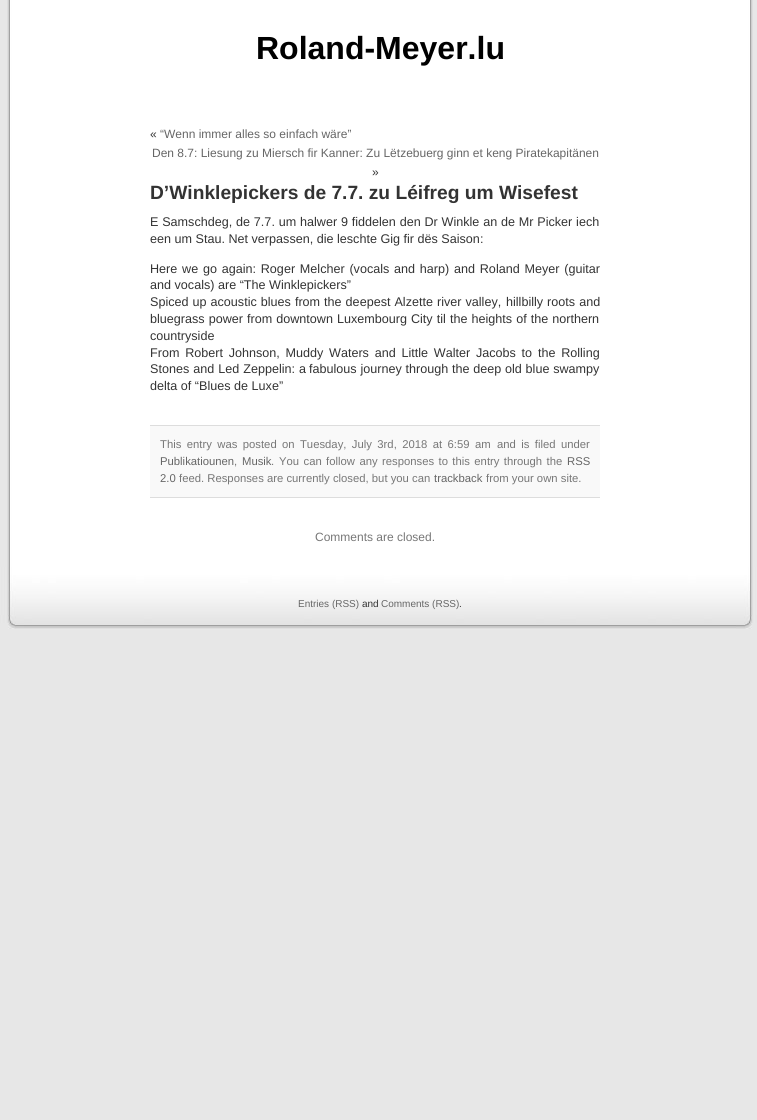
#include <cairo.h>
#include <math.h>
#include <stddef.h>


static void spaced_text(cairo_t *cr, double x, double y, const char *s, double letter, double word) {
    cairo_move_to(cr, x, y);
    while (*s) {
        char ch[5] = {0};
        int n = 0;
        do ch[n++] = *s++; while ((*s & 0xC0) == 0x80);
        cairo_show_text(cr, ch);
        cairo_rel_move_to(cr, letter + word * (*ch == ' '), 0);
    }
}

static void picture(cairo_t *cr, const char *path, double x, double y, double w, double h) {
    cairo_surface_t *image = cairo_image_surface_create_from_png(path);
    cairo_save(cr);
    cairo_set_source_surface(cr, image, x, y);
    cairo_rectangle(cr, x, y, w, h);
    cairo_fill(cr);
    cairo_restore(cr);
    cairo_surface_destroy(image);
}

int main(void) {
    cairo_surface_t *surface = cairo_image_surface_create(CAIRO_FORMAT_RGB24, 757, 1120);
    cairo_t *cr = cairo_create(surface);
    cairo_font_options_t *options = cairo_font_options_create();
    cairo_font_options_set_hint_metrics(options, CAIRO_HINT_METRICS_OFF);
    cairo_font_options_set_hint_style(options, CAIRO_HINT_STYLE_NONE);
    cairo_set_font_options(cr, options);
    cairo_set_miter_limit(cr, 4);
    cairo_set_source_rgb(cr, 0.906, 0.906, 0.906);
    cairo_paint(cr);
    picture(cr, "img1.png", 7, 0, 746, 567);
    cairo_select_font_face(cr, "Liberation Sans", CAIRO_FONT_SLANT_NORMAL, CAIRO_FONT_WEIGHT_BOLD);
    cairo_set_font_size(cr, 32);
    cairo_set_source_rgb(cr, 0, 0, 0);
    cairo_move_to(cr, 256, 59);
    cairo_show_text(cr, "Roland-Meyer.lu");
    cairo_select_font_face(cr, "Liberation Sans", CAIRO_FONT_SLANT_NORMAL, CAIRO_FONT_WEIGHT_NORMAL);
    cairo_set_font_size(cr, 12);
    cairo_set_source_rgb(cr, 0.2, 0.2, 0.2);
    cairo_move_to(cr, 150, 138);
    cairo_show_text(cr, "«");
    cairo_set_source_rgb(cr, 0.4, 0.4, 0.4);
    cairo_move_to(cr, 160, 138);
    cairo_show_text(cr, "“Wenn immer alles so einfach wäre”");
    cairo_move_to(cr, 152, 157);
    cairo_show_text(cr, "Den 8.7: Liesung zu Miersch fir Kanner: Zu Lëtzebuerg ginn et keng Piratekapitänen");
    cairo_set_source_rgb(cr, 0.2, 0.2, 0.2);
    cairo_move_to(cr, 372, 176);
    cairo_show_text(cr, "»");
    cairo_select_font_face(cr, "Liberation Sans", CAIRO_FONT_SLANT_NORMAL, CAIRO_FONT_WEIGHT_BOLD);
    cairo_set_font_size(cr, 19.2);
    cairo_move_to(cr, 150, 199);
    cairo_show_text(cr, "D’Winklepickers de 7.7. zu Léifreg um Wisefest");
    cairo_select_font_face(cr, "Liberation Sans", CAIRO_FONT_SLANT_NORMAL, CAIRO_FONT_WEIGHT_NORMAL);
    cairo_set_font_size(cr, 12.6);
    spaced_text(cr, 150, 226, "E Samschdeg, de 7.7. um halwer 9 fiddelen den Dr Winkle an de Mr Picker iech", 0, 0.3);
    cairo_move_to(cr, 150, 243);
    cairo_show_text(cr, "een um Stau. Net verpassen, die leschte Gig fir dës Saison:");
    spaced_text(cr, 150, 273, "Here we go again: Roger Melcher (vocals and harp) and Roland Meyer (guitar", 0, 1.25);
    cairo_move_to(cr, 150, 289);
    cairo_show_text(cr, "and vocals) are “The Winklepickers”");
    spaced_text(cr, 150, 306, "Spiced up acoustic blues from the deepest Alzette river valley,", 0, 0.5);
    spaced_text(cr, 506, 306, "hillbilly roots and", 0, 0.5);
    spaced_text(cr, 150, 323, "bluegrass power from downtown Luxembourg City til", 0, 0.5);
    spaced_text(cr, 450, 323, "the heights of the northern", 0, 0.5);
    cairo_move_to(cr, 150, 340);
    cairo_show_text(cr, "countryside");
    spaced_text(cr, 150, 357, "From Robert Johnson, Muddy", 0, 2.25);
    spaced_text(cr, 329, 357, "Waters and Little Walter Jacobs to the Rolling", 0, 2.25);
    spaced_text(cr, 150, 373, "Stones and Led Zeppelin: a", 0, 0.5);
    spaced_text(cr, 309, 373, "fabulous journey through the deep old blue swampy", 0, 0.25);
    cairo_move_to(cr, 150, 390);
    cairo_show_text(cr, "delta of “Blues de Luxe”");
    cairo_set_source_rgb(cr, 0.973, 0.973, 0.973);
    cairo_rectangle(cr, 150, 426, 450, 71);
    cairo_fill(cr);
    cairo_set_source_rgb(cr, 0.867, 0.867, 0.867);
    cairo_rectangle(cr, 150, 425, 450, 1);
    cairo_fill(cr);
    cairo_rectangle(cr, 150, 497, 450, 1);
    cairo_fill(cr);
    cairo_set_font_size(cr, 11.3);
    cairo_set_source_rgb(cr, 0.467, 0.467, 0.467);
    spaced_text(cr, 160, 448, "This entry was posted", 0, 2.25);
    spaced_text(cr, 282, 448, "on Tuesday, July 3rd, 2018 at 6:59 am", 0, 2.25);
    spaced_text(cr, 497, 448, "and is filed under", 0, 2.25);
    cairo_set_source_rgb(cr, 0.4, 0.4, 0.4);
    cairo_move_to(cr, 160, 465);
    cairo_show_text(cr, "Publikatiounen");
    cairo_set_source_rgb(cr, 0.467, 0.467, 0.467);
    cairo_move_to(cr, 234, 465);
    cairo_show_text(cr, ",");
    cairo_set_source_rgb(cr, 0.4, 0.4, 0.4);
    cairo_move_to(cr, 242, 465);
    cairo_show_text(cr, "Musik");
    cairo_set_source_rgb(cr, 0.467, 0.467, 0.467);
    cairo_move_to(cr, 271, 465);
    cairo_show_text(cr, ".");
    spaced_text(cr, 279, 465, "You can follow any responses to this entry through the", 0, 1.25);
    cairo_set_source_rgb(cr, 0.4, 0.4, 0.4);
    cairo_move_to(cr, 567, 465);
    cairo_show_text(cr, "RSS");
    cairo_move_to(cr, 160, 482);
    cairo_show_text(cr, "2.0");
    cairo_set_source_rgb(cr, 0.467, 0.467, 0.467);
    cairo_move_to(cr, 179, 482);
    cairo_show_text(cr, "feed. Responses are currently closed, but you can");
    cairo_set_source_rgb(cr, 0.4, 0.4, 0.4);
    cairo_move_to(cr, 434, 482);
    cairo_show_text(cr, "trackback");
    cairo_set_source_rgb(cr, 0.467, 0.467, 0.467);
    cairo_move_to(cr, 486, 482);
    cairo_show_text(cr, "from your own site.");
    cairo_set_font_size(cr, 12);
    cairo_move_to(cr, 315, 541);
    cairo_show_text(cr, "Comments are closed.");
    picture(cr, "img2.png", 0, 567, 757, 62);
    cairo_set_font_size(cr, 10);
    cairo_set_source_rgb(cr, 0.4, 0.4, 0.4);
    cairo_move_to(cr, 298, 607);
    cairo_show_text(cr, "Entries (RSS)");
    cairo_set_source_rgb(cr, 0.2, 0.2, 0.2);
    cairo_move_to(cr, 362, 607);
    cairo_show_text(cr, "and");
    cairo_set_source_rgb(cr, 0.4, 0.4, 0.4);
    cairo_move_to(cr, 381, 607);
    cairo_show_text(cr, "Comments (RSS)");
    cairo_set_source_rgb(cr, 0.2, 0.2, 0.2);
    cairo_move_to(cr, 459, 607);
    cairo_show_text(cr, ".");
    cairo_surface_write_to_png(surface, "page.png");
    cairo_font_options_destroy(options);
    cairo_destroy(cr);
    cairo_surface_destroy(surface);
    return 0;
}
